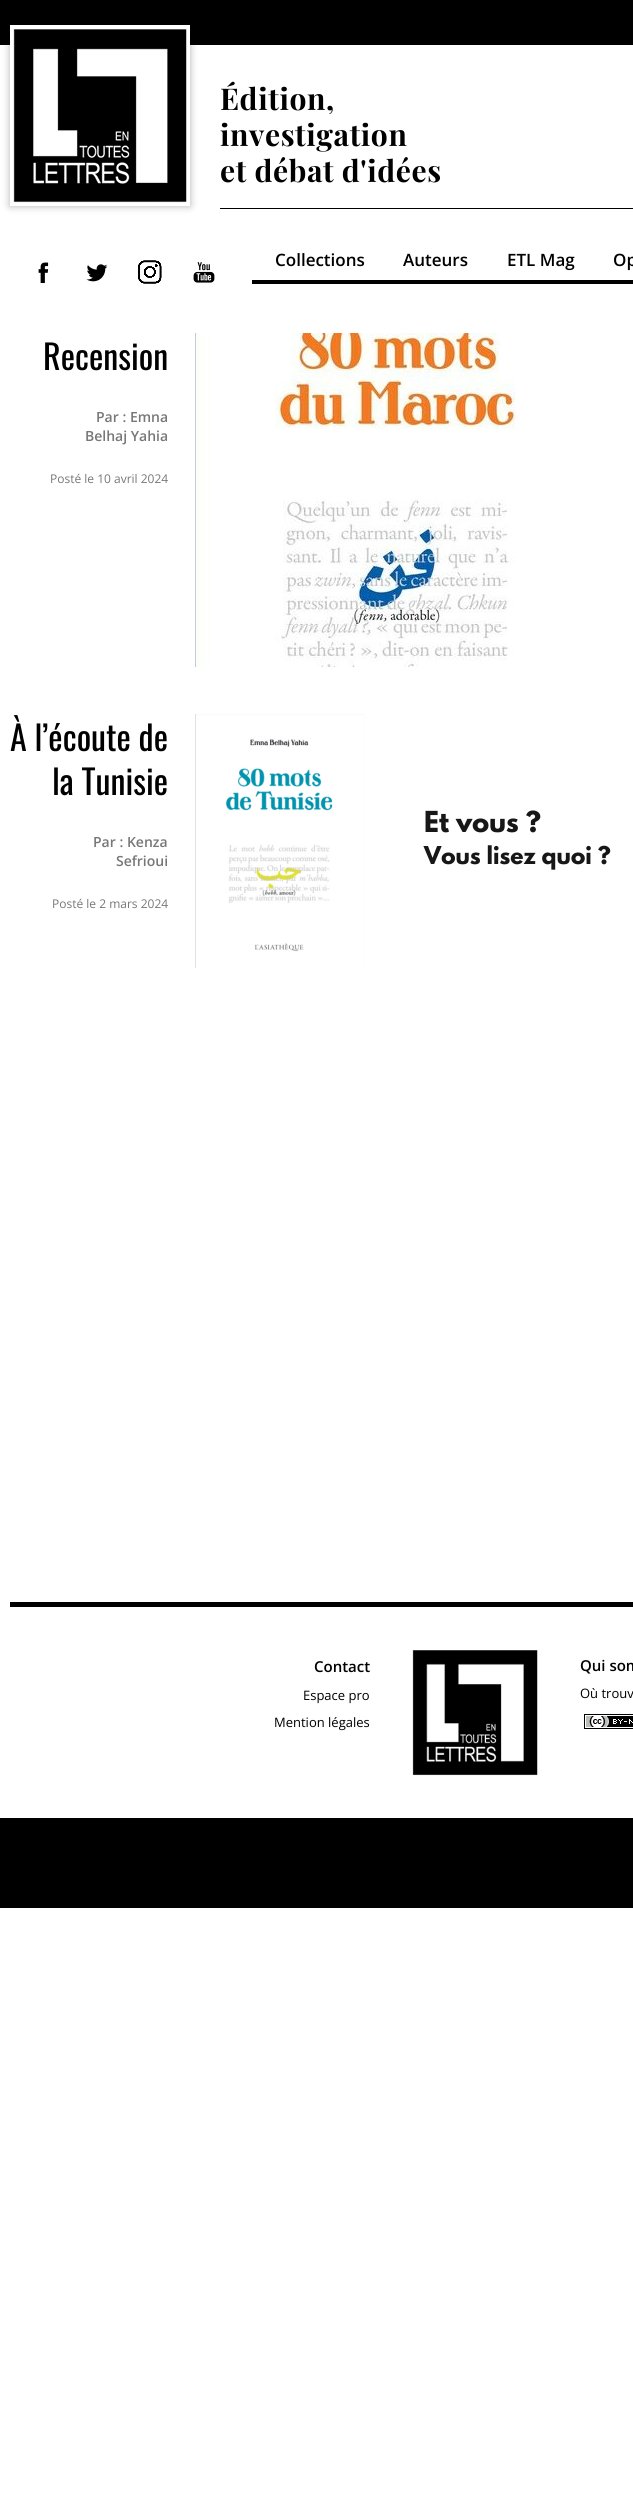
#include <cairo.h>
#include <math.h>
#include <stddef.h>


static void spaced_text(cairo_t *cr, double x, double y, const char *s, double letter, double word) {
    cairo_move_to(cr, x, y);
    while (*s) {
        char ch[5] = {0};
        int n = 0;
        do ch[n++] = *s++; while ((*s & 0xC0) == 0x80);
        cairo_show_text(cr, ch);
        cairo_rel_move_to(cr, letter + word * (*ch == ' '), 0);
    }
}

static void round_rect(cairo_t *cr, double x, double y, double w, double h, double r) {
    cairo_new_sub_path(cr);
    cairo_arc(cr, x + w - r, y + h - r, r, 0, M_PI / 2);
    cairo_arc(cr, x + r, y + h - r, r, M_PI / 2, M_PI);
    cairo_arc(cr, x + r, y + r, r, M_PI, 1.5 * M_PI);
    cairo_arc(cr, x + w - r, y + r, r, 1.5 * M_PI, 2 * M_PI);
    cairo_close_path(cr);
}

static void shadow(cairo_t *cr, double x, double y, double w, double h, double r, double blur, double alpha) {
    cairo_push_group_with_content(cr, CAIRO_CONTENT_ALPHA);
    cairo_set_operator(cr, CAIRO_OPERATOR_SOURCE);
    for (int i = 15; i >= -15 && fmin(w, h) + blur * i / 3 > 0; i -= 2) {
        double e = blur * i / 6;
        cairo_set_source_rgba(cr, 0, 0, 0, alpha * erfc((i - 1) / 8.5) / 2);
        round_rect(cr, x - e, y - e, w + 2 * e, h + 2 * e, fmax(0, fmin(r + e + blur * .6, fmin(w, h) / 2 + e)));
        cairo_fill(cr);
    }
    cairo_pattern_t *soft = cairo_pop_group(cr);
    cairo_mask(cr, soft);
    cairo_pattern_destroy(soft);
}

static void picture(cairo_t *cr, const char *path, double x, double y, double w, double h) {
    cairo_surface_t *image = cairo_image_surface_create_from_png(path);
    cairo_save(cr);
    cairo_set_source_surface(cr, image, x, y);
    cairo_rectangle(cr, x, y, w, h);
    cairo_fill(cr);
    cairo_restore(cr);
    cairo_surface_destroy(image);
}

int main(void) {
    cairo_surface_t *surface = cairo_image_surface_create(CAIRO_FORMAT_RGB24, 633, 2514);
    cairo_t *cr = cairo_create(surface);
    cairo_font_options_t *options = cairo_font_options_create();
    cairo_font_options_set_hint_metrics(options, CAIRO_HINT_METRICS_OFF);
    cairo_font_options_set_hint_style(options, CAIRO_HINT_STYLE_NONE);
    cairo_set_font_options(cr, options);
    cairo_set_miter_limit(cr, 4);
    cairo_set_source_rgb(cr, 1, 1, 1);
    cairo_paint(cr);
    cairo_set_source_rgb(cr, 0, 0, 0);
    cairo_rectangle(cr, 0, 0, 633, 45);
    cairo_fill(cr);
    cairo_rectangle(cr, 0, 1818, 633, 90);
    cairo_fill(cr);
    cairo_save(cr);
    cairo_set_fill_rule(cr, CAIRO_FILL_RULE_EVEN_ODD);
    cairo_new_path(cr);
    cairo_move_to(cr, 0, 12);
    cairo_line_to(cr, 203, 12);
    cairo_line_to(cr, 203, 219);
    cairo_line_to(cr, 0, 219);
    cairo_close_path(cr);
    cairo_move_to(cr, 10, 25);
    cairo_line_to(cr, 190, 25);
    cairo_line_to(cr, 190, 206);
    cairo_line_to(cr, 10, 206);
    cairo_close_path(cr);
    cairo_clip(cr);
    cairo_set_source_rgb(cr, 0, 0, 0);
    shadow(cr, 10, 25, 180, 181, 0, 4, 0.3);
    cairo_restore(cr);
    picture(cr, "img1.png", 10, 25, 180, 178);
    cairo_rectangle(cr, 220, 208, 413, 1);
    cairo_fill(cr);
    cairo_select_font_face(cr, "Playfair Display", CAIRO_FONT_SLANT_NORMAL, CAIRO_FONT_WEIGHT_BOLD);
    cairo_set_font_size(cr, 30);
    spaced_text(cr, 220, 110, "Édition,", 0.6, 0);
    spaced_text(cr, 220, 146, "investigation", 0.6, 0);
    spaced_text(cr, 220, 182, "et débat d'idées", 0.6, 0);
    picture(cr, "img2.png", 38, 262, 11, 22);
    picture(cr, "img3.png", 86, 264, 22, 18);
    picture(cr, "img4.png", 138, 260, 24, 24);
    picture(cr, "img5.png", 193, 262, 22, 21);
    cairo_rectangle(cr, 252, 280, 381, 4);
    cairo_fill(cr);
    cairo_select_font_face(cr, "Open Sans SemiBold", CAIRO_FONT_SLANT_NORMAL, CAIRO_FONT_WEIGHT_NORMAL);
    cairo_set_font_size(cr, 17);
    cairo_move_to(cr, 275, 266);
    cairo_show_text(cr, "Collections");
    cairo_move_to(cr, 403, 266);
    cairo_show_text(cr, "Auteurs");
    cairo_move_to(cr, 507, 266);
    cairo_show_text(cr, "ETL Mag");
    cairo_move_to(cr, 613, 266);
    cairo_show_text(cr, "Op");
    cairo_select_font_face(cr, "Oswald", CAIRO_FONT_SLANT_NORMAL, CAIRO_FONT_WEIGHT_NORMAL);
    cairo_set_font_size(cr, 34);
    cairo_move_to(cr, 43, 370);
    cairo_show_text(cr, "Recension");
    cairo_select_font_face(cr, "Open Sans SemiBold", CAIRO_FONT_SLANT_NORMAL, CAIRO_FONT_WEIGHT_NORMAL);
    cairo_set_font_size(cr, 14);
    cairo_set_source_rgb(cr, 0.467, 0.467, 0.467);
    cairo_move_to(cr, 96, 422);
    cairo_show_text(cr, "Par : Emna");
    cairo_move_to(cr, 85, 441);
    cairo_show_text(cr, "Belhaj Yahia");
    cairo_select_font_face(cr, "Open Sans", CAIRO_FONT_SLANT_NORMAL, CAIRO_FONT_WEIGHT_NORMAL);
    cairo_set_font_size(cr, 12);
    cairo_move_to(cr, 50, 483);
    cairo_show_text(cr, "Posté le 10 avril 2024");
    picture(cr, "img6.png", 195, 333, 321, 334);
    cairo_select_font_face(cr, "Oswald", CAIRO_FONT_SLANT_NORMAL, CAIRO_FONT_WEIGHT_NORMAL);
    cairo_set_font_size(cr, 34);
    cairo_set_source_rgb(cr, 0, 0, 0);
    cairo_move_to(cr, 10, 751);
    cairo_show_text(cr, "À l’écoute de");
    cairo_move_to(cr, 52, 795);
    cairo_show_text(cr, "la Tunisie");
    cairo_select_font_face(cr, "Open Sans SemiBold", CAIRO_FONT_SLANT_NORMAL, CAIRO_FONT_WEIGHT_NORMAL);
    cairo_set_font_size(cr, 14);
    cairo_set_source_rgb(cr, 0.467, 0.467, 0.467);
    cairo_move_to(cr, 93, 847);
    cairo_show_text(cr, "Par : Kenza");
    cairo_move_to(cr, 116, 866);
    cairo_show_text(cr, "Sefrioui");
    cairo_select_font_face(cr, "Open Sans", CAIRO_FONT_SLANT_NORMAL, CAIRO_FONT_WEIGHT_NORMAL);
    cairo_set_font_size(cr, 12);
    cairo_move_to(cr, 52, 908);
    cairo_show_text(cr, "Posté le 2 mars 2024");
    picture(cr, "img7.png", 195, 714, 416, 254);
    cairo_set_source_rgb(cr, 0, 0, 0);
    cairo_rectangle(cr, 10, 1602, 623, 5);
    cairo_fill(cr);
    cairo_select_font_face(cr, "Open Sans SemiBold", CAIRO_FONT_SLANT_NORMAL, CAIRO_FONT_WEIGHT_NORMAL);
    cairo_set_font_size(cr, 15);
    cairo_move_to(cr, 314, 1672);
    cairo_show_text(cr, "Contact");
    cairo_select_font_face(cr, "Open Sans", CAIRO_FONT_SLANT_NORMAL, CAIRO_FONT_WEIGHT_NORMAL);
    cairo_set_font_size(cr, 13);
    cairo_move_to(cr, 303, 1700);
    cairo_show_text(cr, "Espace pro");
    cairo_move_to(cr, 274, 1727);
    cairo_show_text(cr, "Mention légales");
    picture(cr, "img8.png", 412, 1650, 126, 126);
    cairo_select_font_face(cr, "Open Sans SemiBold", CAIRO_FONT_SLANT_NORMAL, CAIRO_FONT_WEIGHT_NORMAL);
    cairo_set_font_size(cr, 15);
    cairo_move_to(cr, 580, 1671);
    cairo_show_text(cr, "Qui som");
    cairo_select_font_face(cr, "Open Sans", CAIRO_FONT_SLANT_NORMAL, CAIRO_FONT_WEIGHT_NORMAL);
    cairo_set_font_size(cr, 13);
    cairo_move_to(cr, 580, 1698);
    cairo_show_text(cr, "Où trouv");
    picture(cr, "img9.png", 584, 1714, 49, 15);
    cairo_surface_write_to_png(surface, "page.png");
    cairo_font_options_destroy(options);
    cairo_destroy(cr);
    cairo_surface_destroy(surface);
    return 0;
}
